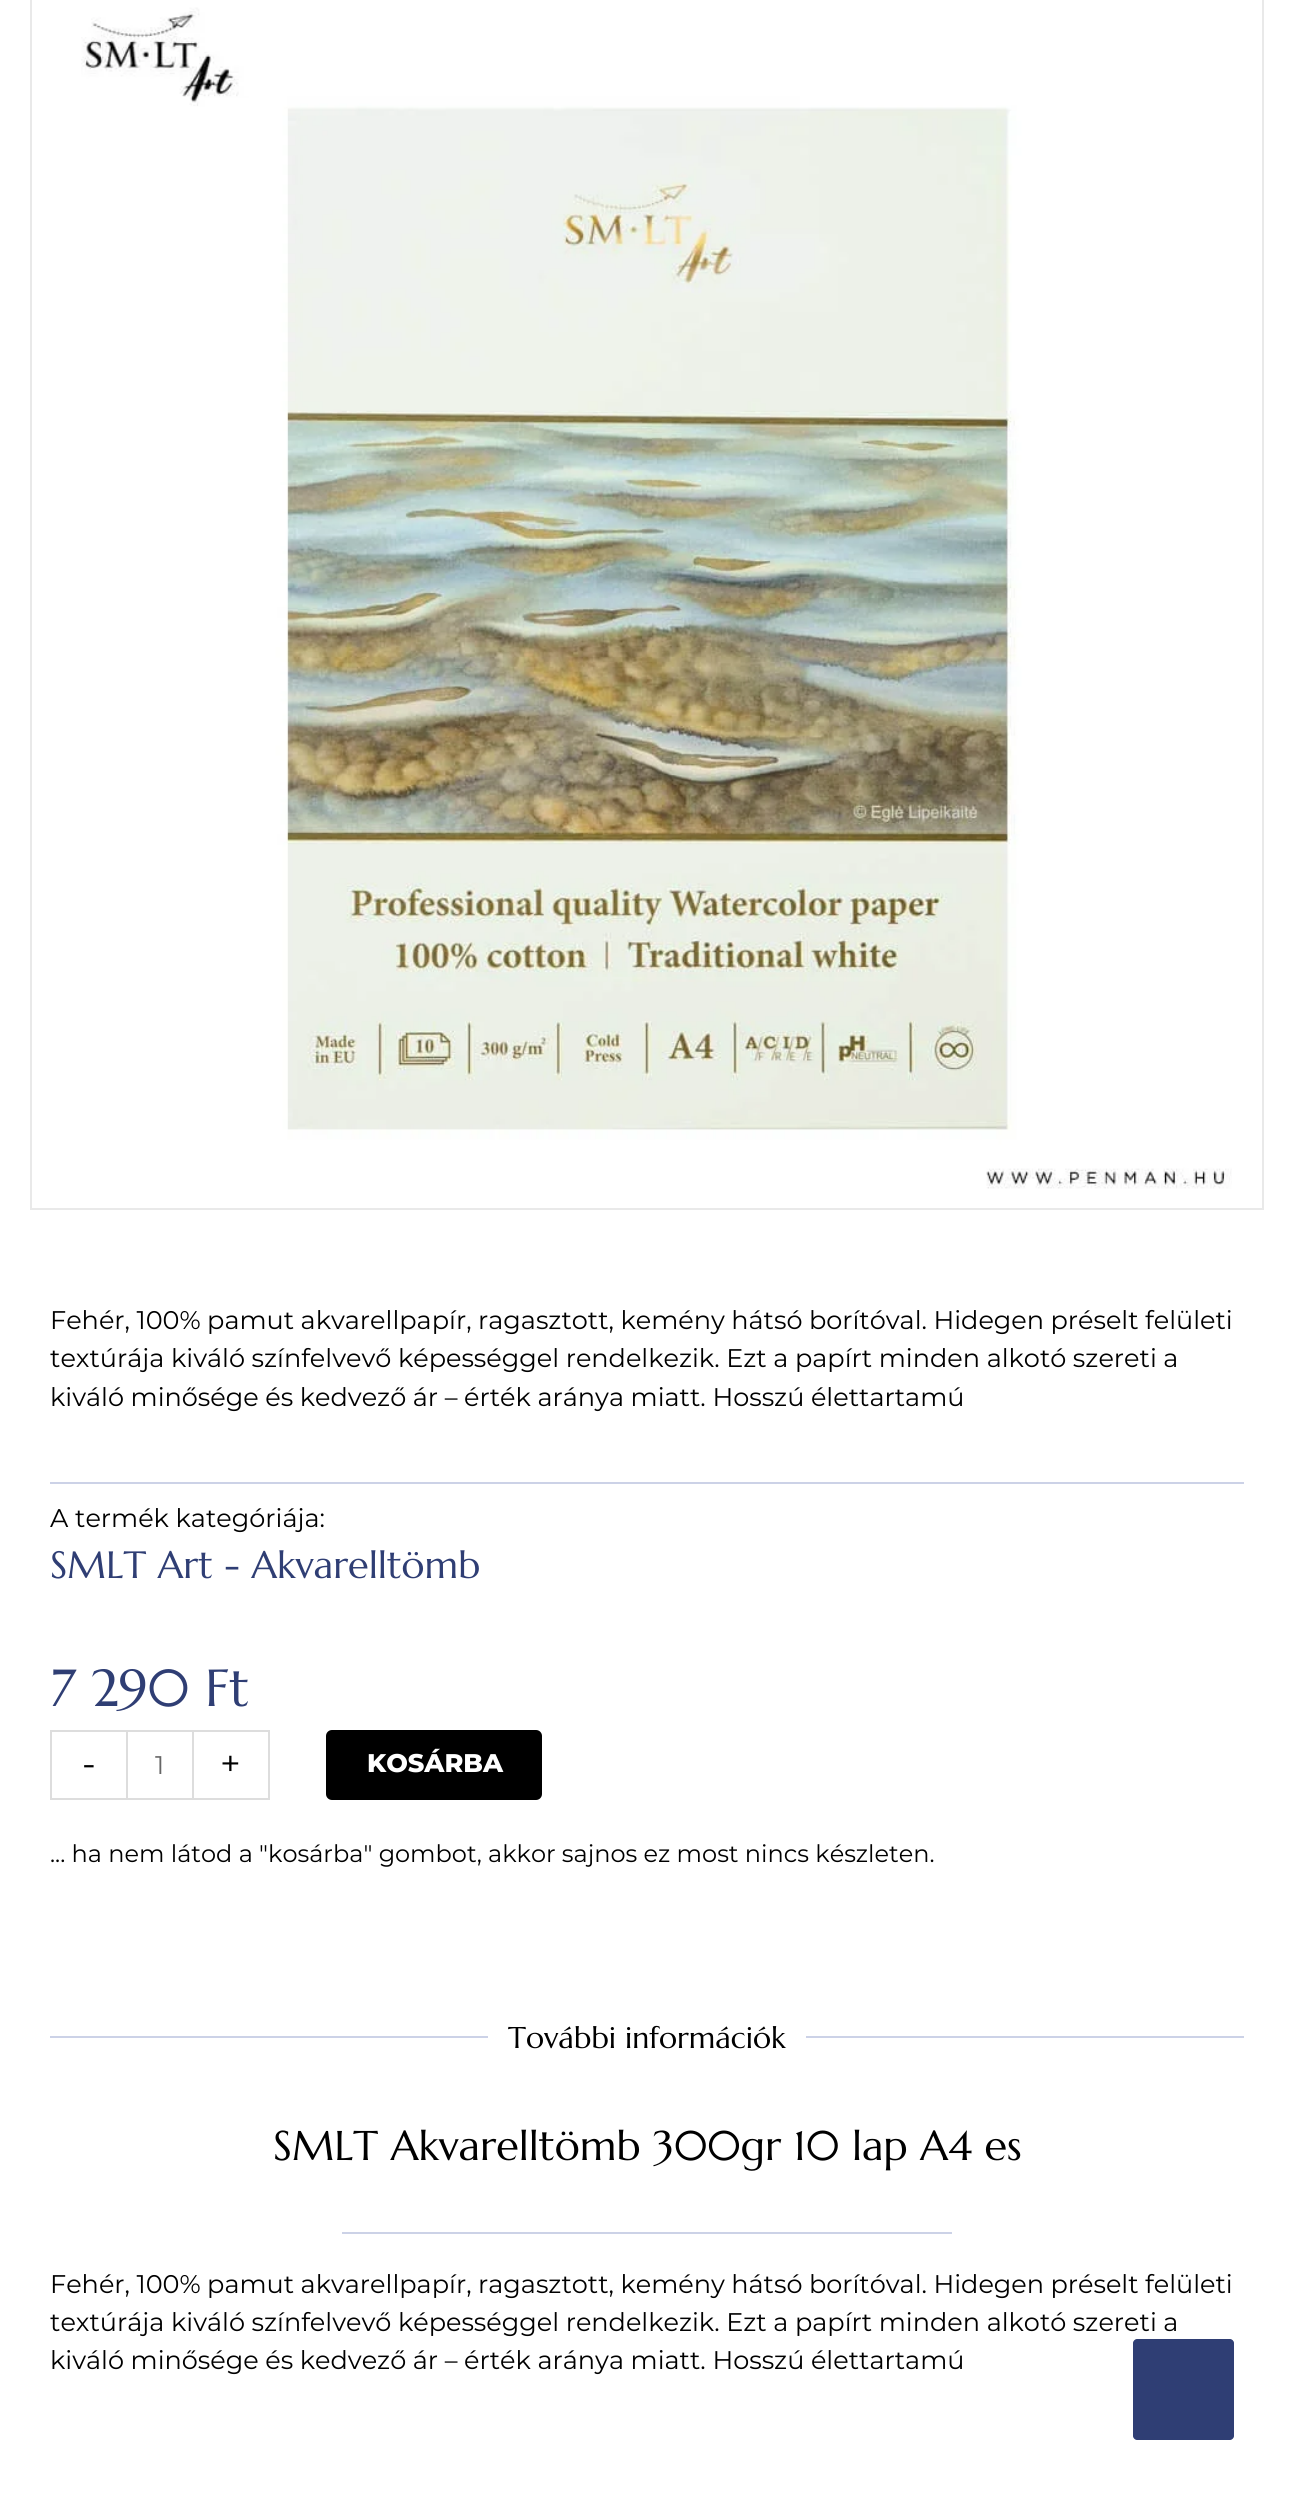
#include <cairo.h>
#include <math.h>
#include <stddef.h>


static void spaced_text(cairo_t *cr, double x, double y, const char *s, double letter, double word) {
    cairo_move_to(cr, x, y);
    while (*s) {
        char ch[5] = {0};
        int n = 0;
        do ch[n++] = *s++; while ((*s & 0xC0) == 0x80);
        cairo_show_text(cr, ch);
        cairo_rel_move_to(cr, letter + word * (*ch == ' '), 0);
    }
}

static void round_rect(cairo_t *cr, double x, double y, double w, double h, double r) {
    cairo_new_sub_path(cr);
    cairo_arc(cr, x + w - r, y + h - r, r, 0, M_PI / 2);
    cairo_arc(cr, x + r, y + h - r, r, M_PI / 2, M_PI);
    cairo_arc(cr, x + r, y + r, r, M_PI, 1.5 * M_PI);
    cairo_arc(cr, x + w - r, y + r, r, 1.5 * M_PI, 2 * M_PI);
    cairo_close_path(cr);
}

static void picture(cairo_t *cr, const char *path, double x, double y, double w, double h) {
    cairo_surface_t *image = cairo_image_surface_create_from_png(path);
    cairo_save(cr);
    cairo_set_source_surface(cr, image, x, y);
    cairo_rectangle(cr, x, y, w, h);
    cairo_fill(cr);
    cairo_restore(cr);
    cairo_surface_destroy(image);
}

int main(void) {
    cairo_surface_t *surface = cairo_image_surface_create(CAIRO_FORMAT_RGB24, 1294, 2499);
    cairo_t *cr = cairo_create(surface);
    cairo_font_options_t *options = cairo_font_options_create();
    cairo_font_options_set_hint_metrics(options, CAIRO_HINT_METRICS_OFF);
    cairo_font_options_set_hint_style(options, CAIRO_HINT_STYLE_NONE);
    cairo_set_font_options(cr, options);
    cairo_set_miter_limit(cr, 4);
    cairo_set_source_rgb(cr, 1, 1, 1);
    cairo_paint(cr);
    cairo_rectangle(cr, 31, -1, 1232, 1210);
    cairo_set_source_rgb(cr, 0.914, 0.914, 0.914);
    cairo_stroke(cr);
    picture(cr, "img1.png", 81, 7, 1151, 1182);
    cairo_select_font_face(cr, "Montserrat", CAIRO_FONT_SLANT_NORMAL, CAIRO_FONT_WEIGHT_NORMAL);
    cairo_set_font_size(cr, 25.55);
    cairo_set_source_rgb(cr, 0, 0, 0);
    spaced_text(cr, 50, 1329, "Fehér, 100% pamut akvarellpapír, ragasztott, kemény hátsó borítóval. Hidegen préselt felületi", 0, -0.25);
    spaced_text(cr, 50, 1367, "textúrája kiváló színfelvevő képességgel rendelkezik. Ezt a papírt minden alkotó szereti a", 0, -0.1);
    spaced_text(cr, 50, 1406, "kiváló minősége és kedvező ár – érték aránya miatt. Hosszú élettartamú", 0, -0.1);
    cairo_set_source_rgb(cr, 0.8, 0.824, 0.906);
    cairo_rectangle(cr, 50, 1482, 1194, 2);
    cairo_fill(cr);
    cairo_set_source_rgb(cr, 0, 0, 0);
    cairo_move_to(cr, 50, 1527);
    cairo_show_text(cr, "A termék kategóriája:");
    cairo_select_font_face(cr, "Marcellus", CAIRO_FONT_SLANT_NORMAL, CAIRO_FONT_WEIGHT_NORMAL);
    cairo_set_font_size(cr, 38);
    cairo_set_source_rgb(cr, 0.184, 0.243, 0.455);
    cairo_move_to(cr, 50, 1578);
    cairo_show_text(cr, "SMLT Art - Akvarelltömb");
    cairo_set_font_size(cr, 52);
    cairo_move_to(cr, 50, 1706);
    cairo_show_text(cr, "7 290 Ft");
    cairo_set_source_rgb(cr, 0.867, 0.867, 0.867);
    cairo_rectangle(cr, 50, 1730, 76, 2);
    cairo_fill(cr);
    cairo_rectangle(cr, 50, 1798, 76, 2);
    cairo_fill(cr);
    cairo_rectangle(cr, 50, 1730, 2, 70);
    cairo_fill(cr);
    cairo_select_font_face(cr, "Montserrat", CAIRO_FONT_SLANT_NORMAL, CAIRO_FONT_WEIGHT_NORMAL);
    cairo_set_font_size(cr, 36);
    cairo_set_source_rgb(cr, 0, 0, 0);
    cairo_move_to(cr, 82, 1776);
    cairo_show_text(cr, "-");
    cairo_rectangle(cr, 127, 1731, 66, 68);
    cairo_set_source_rgb(cr, 0.867, 0.867, 0.867);
    cairo_stroke(cr);
    cairo_set_font_size(cr, 25.55);
    cairo_set_source_rgb(cr, 0.4, 0.4, 0.4);
    cairo_move_to(cr, 155, 1774);
    cairo_show_text(cr, "1");
    cairo_set_source_rgb(cr, 0.867, 0.867, 0.867);
    cairo_rectangle(cr, 194, 1730, 76, 2);
    cairo_fill(cr);
    cairo_rectangle(cr, 268, 1730, 2, 70);
    cairo_fill(cr);
    cairo_rectangle(cr, 194, 1798, 76, 2);
    cairo_fill(cr);
    cairo_set_font_size(cr, 36);
    cairo_set_source_rgb(cr, 0, 0, 0);
    cairo_move_to(cr, 220, 1776);
    cairo_show_text(cr, "+");
    round_rect(cr, 326, 1730, 216, 70, 6);
    cairo_fill(cr);
    cairo_select_font_face(cr, "Montserrat ExtraBold", CAIRO_FONT_SLANT_NORMAL, CAIRO_FONT_WEIGHT_NORMAL);
    cairo_set_font_size(cr, 25.55);
    cairo_set_source_rgb(cr, 1, 1, 1);
    cairo_move_to(cr, 367, 1772);
    cairo_show_text(cr, "KOSÁRBA");
    cairo_select_font_face(cr, "Montserrat", CAIRO_FONT_SLANT_NORMAL, CAIRO_FONT_WEIGHT_NORMAL);
    cairo_set_font_size(cr, 24);
    cairo_set_source_rgb(cr, 0, 0, 0);
    cairo_move_to(cr, 50, 1862);
    cairo_show_text(cr, "... ha nem látod a \"kosárba\" gombot, akkor sajnos ez most nincs készleten.");
    cairo_set_source_rgb(cr, 0.8, 0.824, 0.906);
    cairo_rectangle(cr, 50, 2036, 438, 2);
    cairo_fill(cr);
    cairo_select_font_face(cr, "Marcellus", CAIRO_FONT_SLANT_NORMAL, CAIRO_FONT_WEIGHT_NORMAL);
    cairo_set_font_size(cr, 30);
    cairo_set_source_rgb(cr, 0, 0, 0);
    cairo_move_to(cr, 508, 2048);
    cairo_show_text(cr, "További információk");
    cairo_set_source_rgb(cr, 0.8, 0.824, 0.906);
    cairo_rectangle(cr, 806, 2036, 438, 2);
    cairo_fill(cr);
    cairo_set_font_size(cr, 41.5);
    cairo_set_source_rgb(cr, 0, 0, 0);
    cairo_move_to(cr, 273, 2160);
    cairo_show_text(cr, "SMLT Akvarelltömb 300gr 10 lap A4 es");
    cairo_set_source_rgb(cr, 0.8, 0.824, 0.906);
    cairo_rectangle(cr, 342, 2232, 610, 2);
    cairo_fill(cr);
    cairo_select_font_face(cr, "Montserrat", CAIRO_FONT_SLANT_NORMAL, CAIRO_FONT_WEIGHT_NORMAL);
    cairo_set_font_size(cr, 25.55);
    cairo_set_source_rgb(cr, 0, 0, 0);
    spaced_text(cr, 50, 2293, "Fehér, 100% pamut akvarellpapír, ragasztott, kemény hátsó borítóval. Hidegen préselt felületi", 0, -0.25);
    spaced_text(cr, 50, 2331, "textúrája kiváló színfelvevő képességgel rendelkezik. Ezt a papírt minden alkotó szereti a", 0, -0.1);
    spaced_text(cr, 50, 2369, "kiváló minősége és kedvező ár – érték aránya miatt. Hosszú élettartamú", 0, -0.1);
    cairo_set_source_rgb(cr, 0.184, 0.243, 0.455);
    cairo_new_path(cr);
    cairo_move_to(cr, 1230, 2440);
    cairo_line_to(cr, 1137, 2440);
    cairo_curve_to(cr, 1135, 2440, 1133, 2438, 1133, 2436);
    cairo_line_to(cr, 1133, 2343);
    cairo_curve_to(cr, 1133, 2341, 1135, 2339, 1137, 2339);
    cairo_line_to(cr, 1230, 2339);
    cairo_curve_to(cr, 1232, 2339, 1234, 2341, 1234, 2343);
    cairo_line_to(cr, 1234, 2436);
    cairo_curve_to(cr, 1234, 2438, 1232, 2440, 1230, 2440);
    cairo_close_path(cr);
    cairo_fill(cr);
    cairo_surface_write_to_png(surface, "page.png");
    cairo_font_options_destroy(options);
    cairo_destroy(cr);
    cairo_surface_destroy(surface);
    return 0;
}
